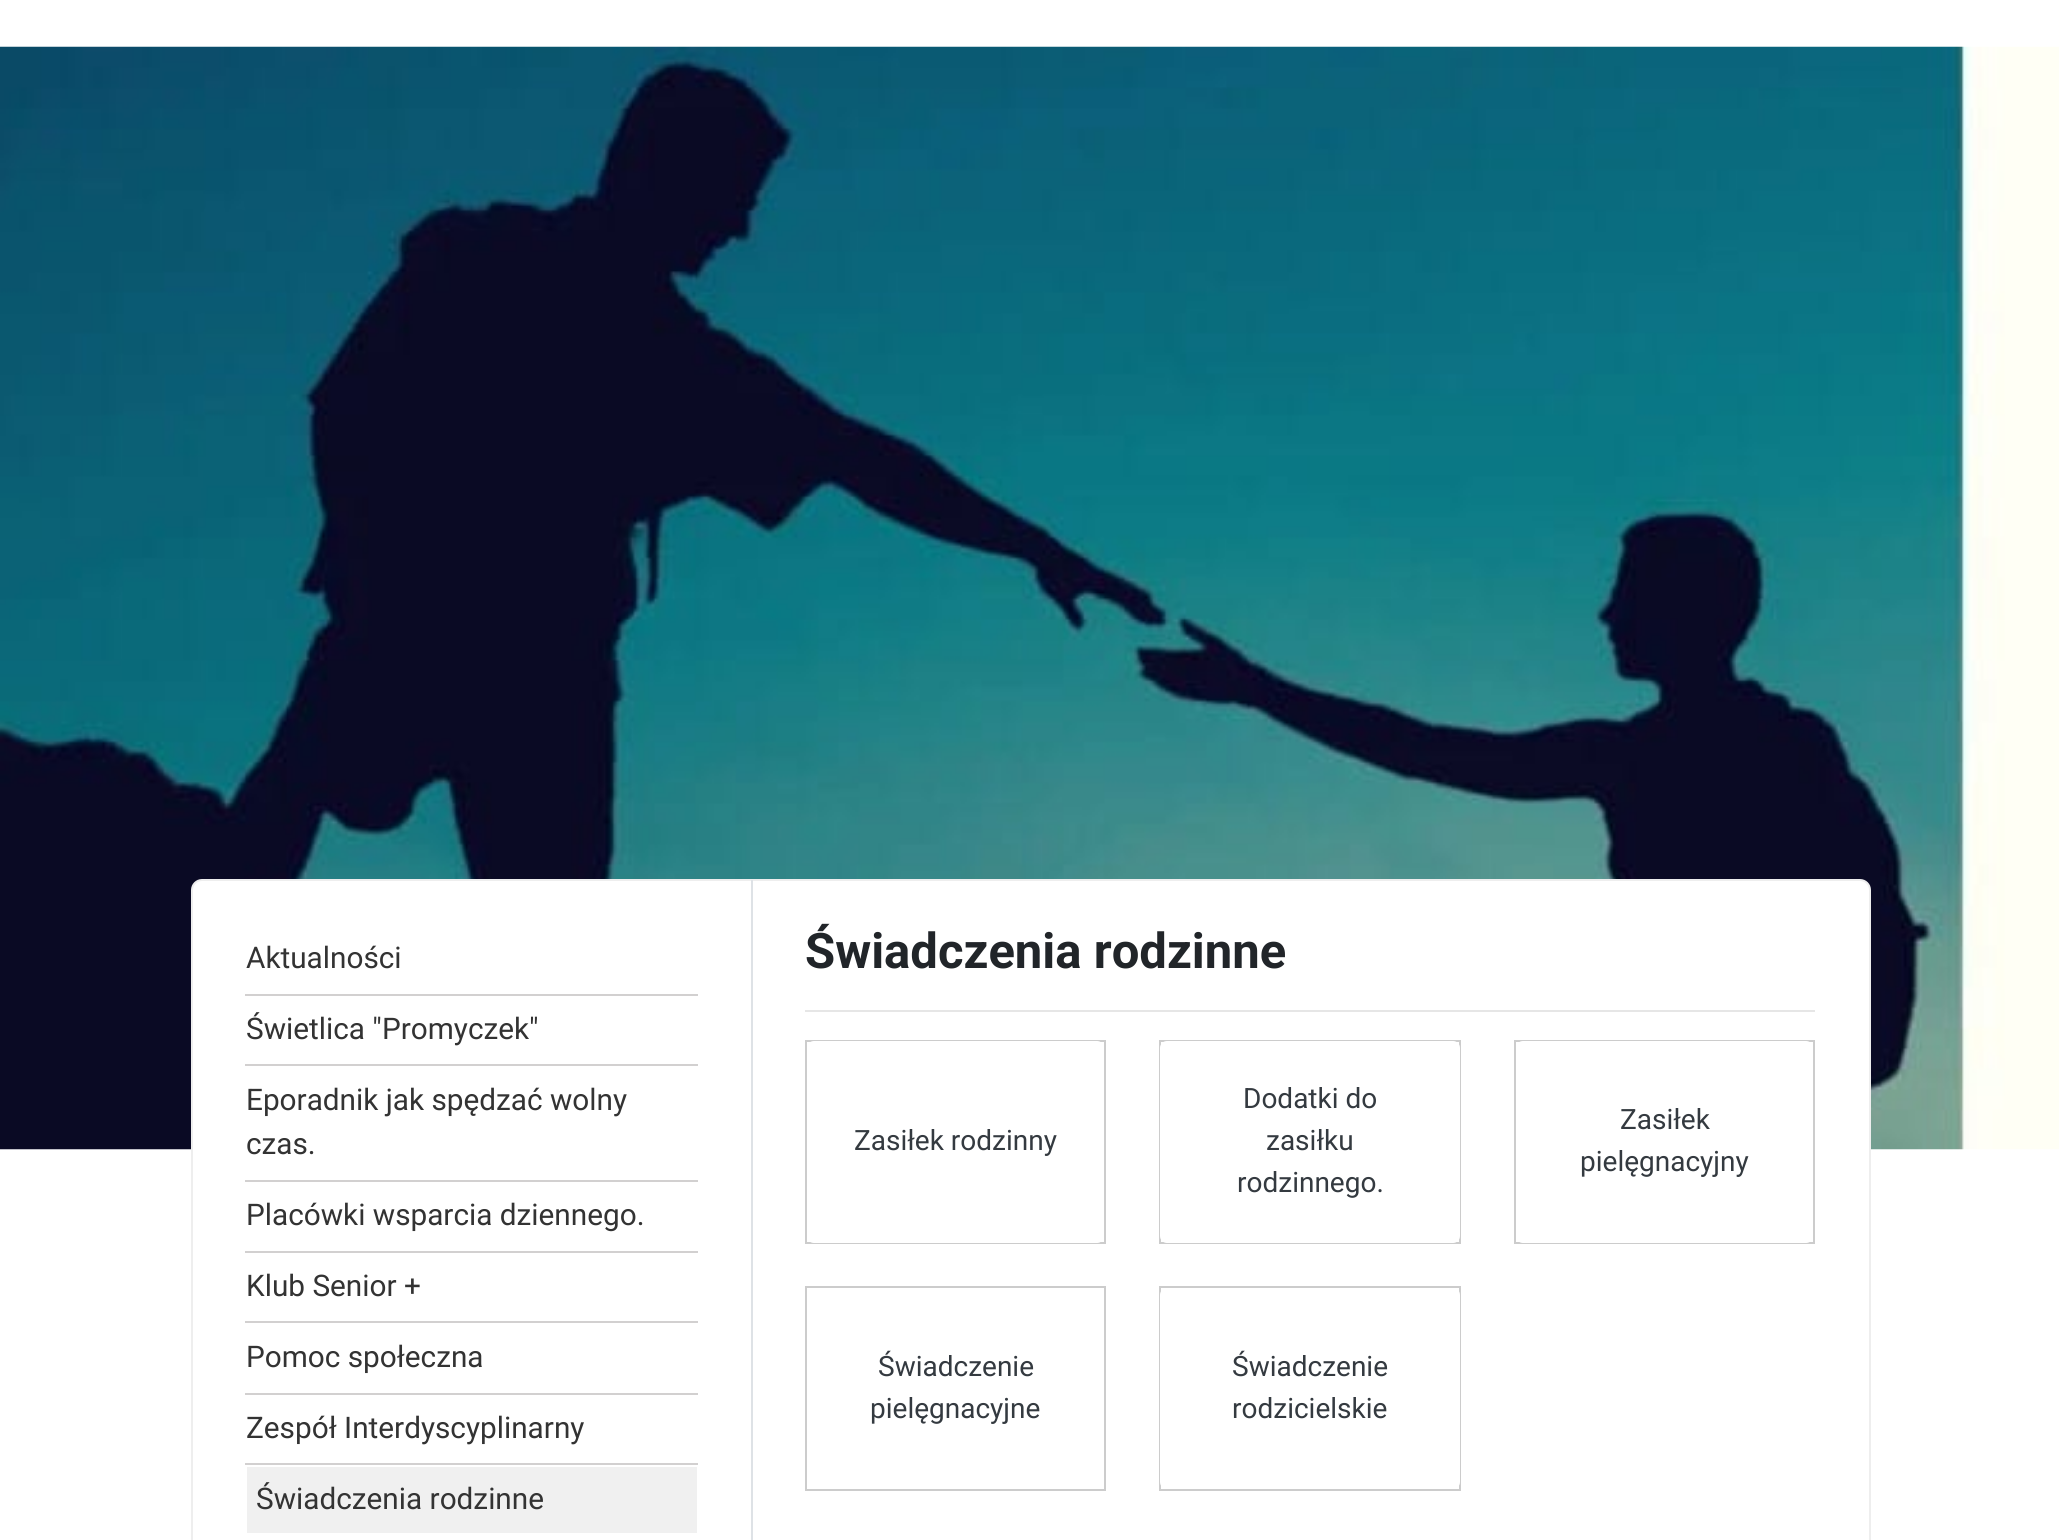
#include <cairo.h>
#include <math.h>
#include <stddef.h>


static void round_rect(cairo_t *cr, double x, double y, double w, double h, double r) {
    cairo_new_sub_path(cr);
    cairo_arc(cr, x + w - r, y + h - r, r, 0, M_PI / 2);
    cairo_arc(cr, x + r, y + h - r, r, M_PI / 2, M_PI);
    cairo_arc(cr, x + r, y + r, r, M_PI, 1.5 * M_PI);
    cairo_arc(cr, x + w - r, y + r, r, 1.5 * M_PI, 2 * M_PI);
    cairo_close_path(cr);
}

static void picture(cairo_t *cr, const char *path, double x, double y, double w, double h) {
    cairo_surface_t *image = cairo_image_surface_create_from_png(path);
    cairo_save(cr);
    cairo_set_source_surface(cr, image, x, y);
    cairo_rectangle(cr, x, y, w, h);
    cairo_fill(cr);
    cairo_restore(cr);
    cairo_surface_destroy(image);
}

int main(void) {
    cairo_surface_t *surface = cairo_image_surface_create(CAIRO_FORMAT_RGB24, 2059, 1540);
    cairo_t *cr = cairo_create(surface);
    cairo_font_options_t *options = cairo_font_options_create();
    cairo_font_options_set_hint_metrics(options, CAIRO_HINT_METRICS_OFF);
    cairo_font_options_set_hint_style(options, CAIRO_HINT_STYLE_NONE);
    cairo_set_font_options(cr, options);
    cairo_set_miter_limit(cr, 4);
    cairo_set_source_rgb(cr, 1, 1, 1);
    cairo_paint(cr);
    picture(cr, "img1.png", 0, 46, 2059, 1104);
    cairo_set_source_rgb(cr, 1, 1, 1);
    round_rect(cr, 192, 880, 1678, 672, 10);
    cairo_fill_preserve(cr);
    cairo_set_source_rgb(cr, 0.933, 0.933, 0.933);
    cairo_stroke(cr);
    cairo_select_font_face(cr, "Roboto", CAIRO_FONT_SLANT_NORMAL, CAIRO_FONT_WEIGHT_NORMAL);
    cairo_set_font_size(cr, 29.75);
    cairo_set_source_rgb(cr, 0.2, 0.2, 0.2);
    cairo_move_to(cr, 246, 968);
    cairo_show_text(cr, "Aktualności");
    cairo_set_source_rgb(cr, 0.824, 0.816, 0.816);
    cairo_rectangle(cr, 245, 994, 453, 2);
    cairo_fill(cr);
    cairo_set_source_rgb(cr, 0.2, 0.2, 0.2);
    cairo_move_to(cr, 246, 1039);
    cairo_show_text(cr, "Świetlica \"Promyczek\"");
    cairo_set_source_rgb(cr, 0.824, 0.816, 0.816);
    cairo_rectangle(cr, 245, 1064, 453, 2);
    cairo_fill(cr);
    cairo_set_source_rgb(cr, 0.2, 0.2, 0.2);
    cairo_move_to(cr, 246, 1110);
    cairo_show_text(cr, "Eporadnik jak spędzać wolny");
    cairo_move_to(cr, 246, 1154);
    cairo_show_text(cr, "czas.");
    cairo_set_source_rgb(cr, 0.824, 0.816, 0.816);
    cairo_rectangle(cr, 245, 1180, 453, 2);
    cairo_fill(cr);
    cairo_set_source_rgb(cr, 0.2, 0.2, 0.2);
    cairo_move_to(cr, 246, 1225);
    cairo_show_text(cr, "Placówki wsparcia dziennego.");
    cairo_set_source_rgb(cr, 0.824, 0.816, 0.816);
    cairo_rectangle(cr, 245, 1251, 453, 2);
    cairo_fill(cr);
    cairo_set_source_rgb(cr, 0.2, 0.2, 0.2);
    cairo_move_to(cr, 246, 1296);
    cairo_show_text(cr, "Klub Senior +");
    cairo_set_source_rgb(cr, 0.824, 0.816, 0.816);
    cairo_rectangle(cr, 245, 1321, 453, 2);
    cairo_fill(cr);
    cairo_set_source_rgb(cr, 0.2, 0.2, 0.2);
    cairo_move_to(cr, 246, 1367);
    cairo_show_text(cr, "Pomoc społeczna");
    cairo_set_source_rgb(cr, 0.824, 0.816, 0.816);
    cairo_rectangle(cr, 245, 1393, 453, 2);
    cairo_fill(cr);
    cairo_set_source_rgb(cr, 0.2, 0.2, 0.2);
    cairo_move_to(cr, 246, 1438);
    cairo_show_text(cr, "Zespół Interdyscyplinarny");
    cairo_set_source_rgb(cr, 0.824, 0.816, 0.816);
    cairo_rectangle(cr, 245, 1463, 453, 2);
    cairo_fill(cr);
    cairo_set_source_rgb(cr, 0.941, 0.941, 0.941);
    cairo_rectangle(cr, 247, 1467, 450, 66);
    cairo_fill(cr);
    cairo_set_source_rgb(cr, 0.2, 0.2, 0.2);
    cairo_move_to(cr, 256, 1509);
    cairo_show_text(cr, "Świadczenia rodzinne");
    cairo_set_source_rgb(cr, 0.871, 0.886, 0.902);
    cairo_rectangle(cr, 751, 880, 2, 660);
    cairo_fill(cr);
    cairo_select_font_face(cr, "Roboto", CAIRO_FONT_SLANT_NORMAL, CAIRO_FONT_WEIGHT_BOLD);
    cairo_set_font_size(cr, 49);
    cairo_set_source_rgb(cr, 0.129, 0.145, 0.161);
    cairo_move_to(cr, 805, 968);
    cairo_show_text(cr, "Świadczenia rodzinne");
    cairo_set_source_rgb(cr, 0.902, 0.902, 0.902);
    cairo_rectangle(cr, 805, 1010, 1010, 2);
    cairo_fill(cr);
    cairo_rectangle(cr, 806, 1041, 299, 202);
    cairo_set_source_rgb(cr, 0.8, 0.8, 0.8);
    cairo_stroke(cr);
    cairo_set_source_rgb(cr, 1, 1, 1);
    round_rect(cr, 807, 1041, 297, 202, 7);
    cairo_fill(cr);
    cairo_select_font_face(cr, "Roboto", CAIRO_FONT_SLANT_NORMAL, CAIRO_FONT_WEIGHT_NORMAL);
    cairo_set_font_size(cr, 28);
    cairo_set_source_rgb(cr, 0.204, 0.227, 0.251);
    cairo_move_to(cr, 854, 1150);
    cairo_show_text(cr, "Zasiłek rodzinny");
    cairo_rectangle(cr, 1160, 1041, 300, 202);
    cairo_set_source_rgb(cr, 0.8, 0.8, 0.8);
    cairo_stroke(cr);
    cairo_set_source_rgb(cr, 1, 1, 1);
    round_rect(cr, 1160, 1041, 300, 202, 7);
    cairo_fill(cr);
    cairo_set_source_rgb(cr, 0.204, 0.227, 0.251);
    cairo_move_to(cr, 1243, 1108);
    cairo_show_text(cr, "Dodatki do");
    cairo_move_to(cr, 1266, 1150);
    cairo_show_text(cr, "zasiłku");
    cairo_move_to(cr, 1237, 1192);
    cairo_show_text(cr, "rodzinnego.");
    cairo_rectangle(cr, 1515, 1041, 299, 202);
    cairo_set_source_rgb(cr, 0.8, 0.8, 0.8);
    cairo_stroke(cr);
    cairo_set_source_rgb(cr, 1, 1, 1);
    round_rect(cr, 1516, 1041, 297, 202, 7);
    cairo_fill(cr);
    cairo_set_source_rgb(cr, 0.204, 0.227, 0.251);
    cairo_move_to(cr, 1620, 1129);
    cairo_show_text(cr, "Zasiłek");
    cairo_move_to(cr, 1580, 1171);
    cairo_show_text(cr, "pielęgnacyjny");
    cairo_rectangle(cr, 806, 1287, 299, 203);
    cairo_set_source_rgb(cr, 0.8, 0.8, 0.8);
    cairo_stroke(cr);
    cairo_set_source_rgb(cr, 0.204, 0.227, 0.251);
    cairo_move_to(cr, 878, 1376);
    cairo_show_text(cr, "Świadczenie");
    cairo_move_to(cr, 870, 1418);
    cairo_show_text(cr, "pielęgnacyjne");
    cairo_rectangle(cr, 1160, 1287, 300, 203);
    cairo_set_source_rgb(cr, 0.8, 0.8, 0.8);
    cairo_stroke(cr);
    cairo_set_source_rgb(cr, 1, 1, 1);
    round_rect(cr, 1160, 1288, 300, 201, 7);
    cairo_fill(cr);
    cairo_set_source_rgb(cr, 0.204, 0.227, 0.251);
    cairo_move_to(cr, 1232, 1376);
    cairo_show_text(cr, "Świadczenie");
    cairo_move_to(cr, 1232, 1418);
    cairo_show_text(cr, "rodzicielskie");
    cairo_surface_write_to_png(surface, "page.png");
    cairo_font_options_destroy(options);
    cairo_destroy(cr);
    cairo_surface_destroy(surface);
    return 0;
}
